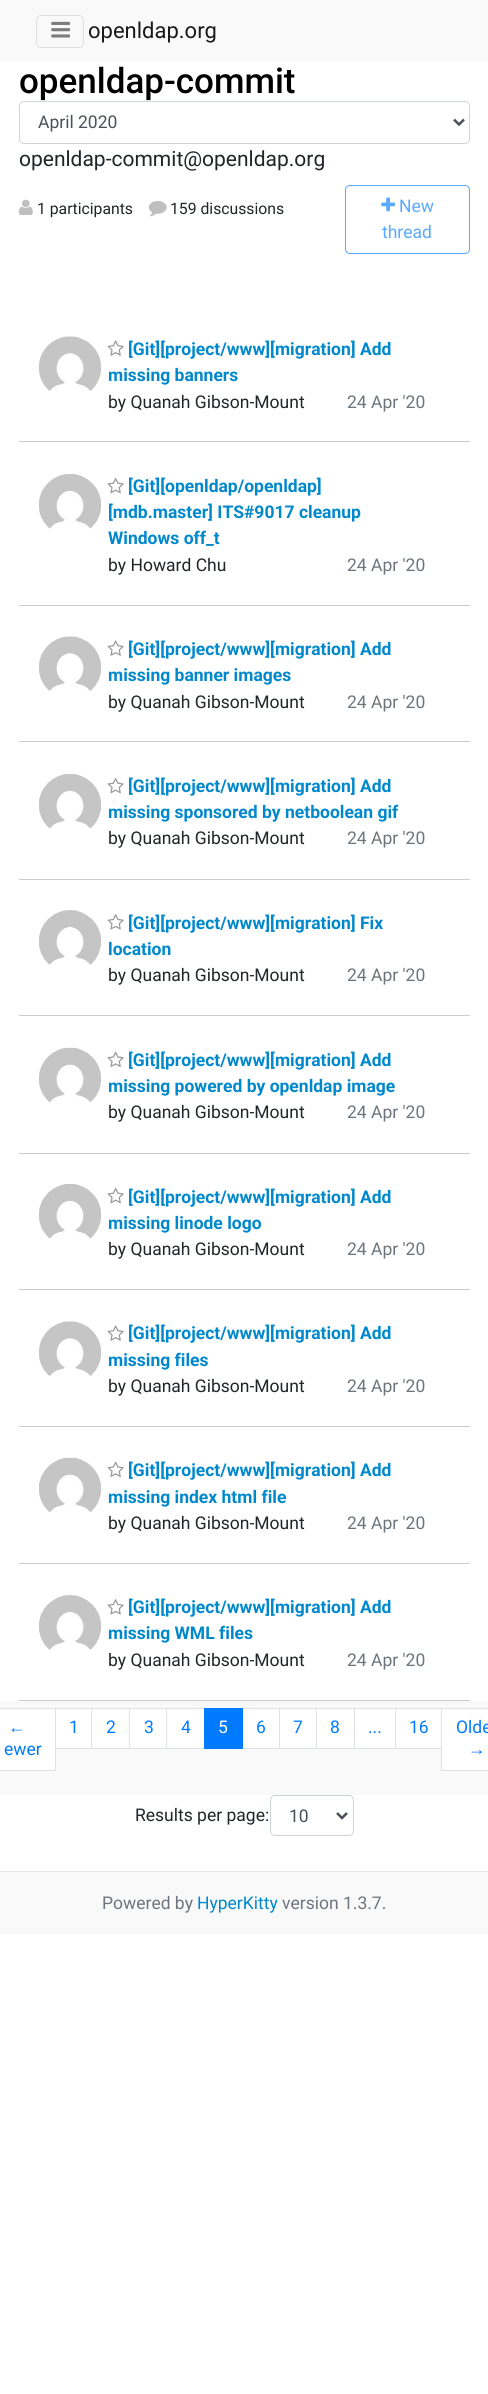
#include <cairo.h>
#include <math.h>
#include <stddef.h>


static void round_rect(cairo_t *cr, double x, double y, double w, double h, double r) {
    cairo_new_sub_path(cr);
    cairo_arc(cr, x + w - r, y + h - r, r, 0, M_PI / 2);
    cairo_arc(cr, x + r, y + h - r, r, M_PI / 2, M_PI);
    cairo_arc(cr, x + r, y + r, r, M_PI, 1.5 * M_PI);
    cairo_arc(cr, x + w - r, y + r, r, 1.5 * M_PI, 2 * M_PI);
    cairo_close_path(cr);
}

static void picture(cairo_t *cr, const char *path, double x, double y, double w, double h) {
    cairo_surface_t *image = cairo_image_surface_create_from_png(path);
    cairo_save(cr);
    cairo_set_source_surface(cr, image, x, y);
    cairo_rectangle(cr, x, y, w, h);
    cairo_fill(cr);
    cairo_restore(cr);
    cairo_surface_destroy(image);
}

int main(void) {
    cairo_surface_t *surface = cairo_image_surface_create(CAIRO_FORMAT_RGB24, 488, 2394);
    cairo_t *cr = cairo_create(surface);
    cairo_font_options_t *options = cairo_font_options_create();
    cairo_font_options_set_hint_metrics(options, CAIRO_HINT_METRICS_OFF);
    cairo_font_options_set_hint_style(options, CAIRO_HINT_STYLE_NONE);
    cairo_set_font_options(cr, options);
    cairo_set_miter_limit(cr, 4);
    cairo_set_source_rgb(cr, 1, 1, 1);
    cairo_paint(cr);
    cairo_set_source_rgb(cr, 0.973, 0.976, 0.98);
    cairo_rectangle(cr, 0, 0, 488, 61);
    cairo_fill(cr);
    round_rect(cr, 36.5, 15.5, 47, 32, 4.5);
    cairo_set_source_rgb(cr, 0.875, 0.878, 0.882);
    cairo_set_line_width(cr, 1);
    cairo_stroke(cr);
    picture(cr, "img1.png", 51, 21, 19, 17);
    cairo_select_font_face(cr, "Roboto", CAIRO_FONT_SLANT_NORMAL, CAIRO_FONT_WEIGHT_NORMAL);
    cairo_set_font_size(cr, 22);
    cairo_set_source_rgb(cr, 0.098, 0.098, 0.098);
    cairo_move_to(cr, 88, 38);
    cairo_show_text(cr, "openldap.org");
    cairo_select_font_face(cr, "Roboto Medium", CAIRO_FONT_SLANT_NORMAL, CAIRO_FONT_WEIGHT_NORMAL);
    cairo_set_font_size(cr, 35);
    cairo_set_source_rgb(cr, 0, 0, 0);
    cairo_move_to(cr, 19, 93);
    cairo_show_text(cr, "openldap-commit");
    round_rect(cr, 19.5, 101.5, 450, 42, 4.5);
    cairo_set_source_rgb(cr, 0.808, 0.831, 0.855);
    cairo_stroke(cr);
    cairo_new_path(cr);
    cairo_move_to(cr, 454, 119.5);
    cairo_line_to(cr, 459, 124.5);
    cairo_line_to(cr, 464, 119.5);
    cairo_set_source_rgb(cr, 0.286, 0.314, 0.341);
    cairo_set_line_width(cr, 2.5);
    cairo_stroke(cr);
    cairo_select_font_face(cr, "Roboto", CAIRO_FONT_SLANT_NORMAL, CAIRO_FONT_WEIGHT_NORMAL);
    cairo_set_font_size(cr, 17.5);
    cairo_move_to(cr, 38, 128);
    cairo_show_text(cr, "April 2020");
    cairo_set_font_size(cr, 21);
    cairo_set_source_rgb(cr, 0.129, 0.145, 0.161);
    cairo_move_to(cr, 19, 166);
    cairo_show_text(cr, "openldap-commit@openldap.org");
    picture(cr, "img2.png", 18, 199, 15, 16);
    cairo_set_font_size(cr, 15.75);
    cairo_move_to(cr, 37, 214);
    cairo_show_text(cr, "1 participants");
    picture(cr, "img3.png", 148, 201, 19, 16);
    cairo_move_to(cr, 170, 214);
    cairo_show_text(cr, "159 discussions");
    round_rect(cr, 345.5, 185.5, 124, 68, 4.5);
    cairo_set_source_rgb(cr, 0.349, 0.663, 1);
    cairo_set_line_width(cr, 1);
    cairo_stroke(cr);
    picture(cr, "img4.png", 381, 197, 14, 15);
    cairo_set_font_size(cr, 17.5);
    cairo_move_to(cr, 399, 212);
    cairo_show_text(cr, "New");
    cairo_move_to(cr, 382, 238);
    cairo_show_text(cr, "thread");
    cairo_set_source_rgb(cr, 0.8, 0.8, 0.8);
    cairo_rectangle(cr, 19, 441, 451, 1);
    cairo_fill(cr);
    picture(cr, "img5.png", 39, 336, 62, 55);
    picture(cr, "img6.png", 107, 340, 17, 16);
    cairo_select_font_face(cr, "Roboto", CAIRO_FONT_SLANT_NORMAL, CAIRO_FONT_WEIGHT_BOLD);
    cairo_set_source_rgb(cr, 0, 0.533, 0.8);
    cairo_move_to(cr, 128, 355);
    cairo_show_text(cr, "[Git][project/www][migration] Add");
    cairo_move_to(cr, 108, 381);
    cairo_show_text(cr, "missing banners");
    cairo_select_font_face(cr, "Roboto", CAIRO_FONT_SLANT_NORMAL, CAIRO_FONT_WEIGHT_NORMAL);
    cairo_set_source_rgb(cr, 0.129, 0.145, 0.161);
    cairo_move_to(cr, 108, 408);
    cairo_show_text(cr, "by Quanah Gibson-Mount");
    cairo_set_source_rgb(cr, 0.424, 0.459, 0.49);
    cairo_move_to(cr, 347, 408);
    cairo_show_text(cr, "24 Apr '20");
    cairo_set_source_rgb(cr, 0.8, 0.8, 0.8);
    cairo_rectangle(cr, 19, 605, 451, 1);
    cairo_fill(cr);
    picture(cr, "img7.png", 39, 474, 62, 55);
    picture(cr, "img8.png", 107, 477, 17, 17);
    cairo_select_font_face(cr, "Roboto", CAIRO_FONT_SLANT_NORMAL, CAIRO_FONT_WEIGHT_BOLD);
    cairo_set_source_rgb(cr, 0, 0.533, 0.8);
    cairo_move_to(cr, 128, 492);
    cairo_show_text(cr, "[Git][openldap/openldap]");
    cairo_move_to(cr, 108, 518);
    cairo_show_text(cr, "[mdb.master] ITS#9017 cleanup");
    cairo_move_to(cr, 108, 544);
    cairo_show_text(cr, "Windows off_t");
    cairo_select_font_face(cr, "Roboto", CAIRO_FONT_SLANT_NORMAL, CAIRO_FONT_WEIGHT_NORMAL);
    cairo_set_source_rgb(cr, 0.129, 0.145, 0.161);
    cairo_move_to(cr, 108, 571);
    cairo_show_text(cr, "by Howard Chu");
    cairo_set_source_rgb(cr, 0.424, 0.459, 0.49);
    cairo_move_to(cr, 347, 571);
    cairo_show_text(cr, "24 Apr '20");
    cairo_set_source_rgb(cr, 0.8, 0.8, 0.8);
    cairo_rectangle(cr, 19, 741, 451, 1);
    cairo_fill(cr);
    picture(cr, "img5.png", 39, 636, 62, 55);
    picture(cr, "img6.png", 107, 640, 17, 16);
    cairo_select_font_face(cr, "Roboto", CAIRO_FONT_SLANT_NORMAL, CAIRO_FONT_WEIGHT_BOLD);
    cairo_set_source_rgb(cr, 0, 0.533, 0.8);
    cairo_move_to(cr, 128, 655);
    cairo_show_text(cr, "[Git][project/www][migration] Add");
    cairo_move_to(cr, 108, 681);
    cairo_show_text(cr, "missing banner images");
    cairo_select_font_face(cr, "Roboto", CAIRO_FONT_SLANT_NORMAL, CAIRO_FONT_WEIGHT_NORMAL);
    cairo_set_source_rgb(cr, 0.129, 0.145, 0.161);
    cairo_move_to(cr, 108, 708);
    cairo_show_text(cr, "by Quanah Gibson-Mount");
    cairo_set_source_rgb(cr, 0.424, 0.459, 0.49);
    cairo_move_to(cr, 347, 708);
    cairo_show_text(cr, "24 Apr '20");
    cairo_set_source_rgb(cr, 0.8, 0.8, 0.8);
    cairo_rectangle(cr, 19, 879, 451, 1);
    cairo_fill(cr);
    picture(cr, "img9.png", 39, 774, 62, 55);
    picture(cr, "img8.png", 107, 777, 17, 17);
    cairo_select_font_face(cr, "Roboto", CAIRO_FONT_SLANT_NORMAL, CAIRO_FONT_WEIGHT_BOLD);
    cairo_set_source_rgb(cr, 0, 0.533, 0.8);
    cairo_move_to(cr, 128, 792);
    cairo_show_text(cr, "[Git][project/www][migration] Add");
    cairo_move_to(cr, 108, 818);
    cairo_show_text(cr, "missing sponsored by netboolean gif");
    cairo_select_font_face(cr, "Roboto", CAIRO_FONT_SLANT_NORMAL, CAIRO_FONT_WEIGHT_NORMAL);
    cairo_set_source_rgb(cr, 0.129, 0.145, 0.161);
    cairo_move_to(cr, 108, 844);
    cairo_show_text(cr, "by Quanah Gibson-Mount");
    cairo_set_source_rgb(cr, 0.424, 0.459, 0.49);
    cairo_move_to(cr, 347, 844);
    cairo_show_text(cr, "24 Apr '20");
    cairo_set_source_rgb(cr, 0.8, 0.8, 0.8);
    cairo_rectangle(cr, 19, 1015, 451, 1);
    cairo_fill(cr);
    picture(cr, "img10.png", 38, 910, 64, 55);
    picture(cr, "img11.png", 107, 914, 17, 16);
    cairo_select_font_face(cr, "Roboto", CAIRO_FONT_SLANT_NORMAL, CAIRO_FONT_WEIGHT_BOLD);
    cairo_set_source_rgb(cr, 0, 0.533, 0.8);
    cairo_move_to(cr, 128, 929);
    cairo_show_text(cr, "[Git][project/www][migration] Fix");
    cairo_move_to(cr, 108, 955);
    cairo_show_text(cr, "location");
    cairo_select_font_face(cr, "Roboto", CAIRO_FONT_SLANT_NORMAL, CAIRO_FONT_WEIGHT_NORMAL);
    cairo_set_source_rgb(cr, 0.129, 0.145, 0.161);
    cairo_move_to(cr, 108, 981);
    cairo_show_text(cr, "by Quanah Gibson-Mount");
    cairo_set_source_rgb(cr, 0.424, 0.459, 0.49);
    cairo_move_to(cr, 347, 981);
    cairo_show_text(cr, "24 Apr '20");
    cairo_set_source_rgb(cr, 0.8, 0.8, 0.8);
    cairo_rectangle(cr, 19, 1153, 451, 1);
    cairo_fill(cr);
    picture(cr, "img12.png", 39, 1047, 62, 56);
    picture(cr, "img13.png", 107, 1051, 17, 16);
    cairo_select_font_face(cr, "Roboto", CAIRO_FONT_SLANT_NORMAL, CAIRO_FONT_WEIGHT_BOLD);
    cairo_set_source_rgb(cr, 0, 0.533, 0.8);
    cairo_move_to(cr, 128, 1066);
    cairo_show_text(cr, "[Git][project/www][migration] Add");
    cairo_move_to(cr, 108, 1092);
    cairo_show_text(cr, "missing powered by openldap image");
    cairo_select_font_face(cr, "Roboto", CAIRO_FONT_SLANT_NORMAL, CAIRO_FONT_WEIGHT_NORMAL);
    cairo_set_source_rgb(cr, 0.129, 0.145, 0.161);
    cairo_move_to(cr, 108, 1118);
    cairo_show_text(cr, "by Quanah Gibson-Mount");
    cairo_set_source_rgb(cr, 0.424, 0.459, 0.49);
    cairo_move_to(cr, 347, 1118);
    cairo_show_text(cr, "24 Apr '20");
    cairo_set_source_rgb(cr, 0.8, 0.8, 0.8);
    cairo_rectangle(cr, 19, 1289, 451, 1);
    cairo_fill(cr);
    picture(cr, "img9.png", 39, 1184, 62, 55);
    picture(cr, "img8.png", 107, 1187, 17, 17);
    cairo_select_font_face(cr, "Roboto", CAIRO_FONT_SLANT_NORMAL, CAIRO_FONT_WEIGHT_BOLD);
    cairo_set_source_rgb(cr, 0, 0.533, 0.8);
    cairo_move_to(cr, 128, 1203);
    cairo_show_text(cr, "[Git][project/www][migration] Add");
    cairo_move_to(cr, 108, 1229);
    cairo_show_text(cr, "missing linode logo");
    cairo_select_font_face(cr, "Roboto", CAIRO_FONT_SLANT_NORMAL, CAIRO_FONT_WEIGHT_NORMAL);
    cairo_set_source_rgb(cr, 0.129, 0.145, 0.161);
    cairo_move_to(cr, 108, 1255);
    cairo_show_text(cr, "by Quanah Gibson-Mount");
    cairo_set_source_rgb(cr, 0.424, 0.459, 0.49);
    cairo_move_to(cr, 347, 1255);
    cairo_show_text(cr, "24 Apr '20");
    cairo_set_source_rgb(cr, 0.8, 0.8, 0.8);
    cairo_rectangle(cr, 19, 1426, 451, 1);
    cairo_fill(cr);
    picture(cr, "img5.png", 39, 1321, 62, 55);
    picture(cr, "img6.png", 107, 1325, 17, 16);
    cairo_select_font_face(cr, "Roboto", CAIRO_FONT_SLANT_NORMAL, CAIRO_FONT_WEIGHT_BOLD);
    cairo_set_source_rgb(cr, 0, 0.533, 0.8);
    cairo_move_to(cr, 128, 1339);
    cairo_show_text(cr, "[Git][project/www][migration] Add");
    cairo_move_to(cr, 108, 1366);
    cairo_show_text(cr, "missing files");
    cairo_select_font_face(cr, "Roboto", CAIRO_FONT_SLANT_NORMAL, CAIRO_FONT_WEIGHT_NORMAL);
    cairo_set_source_rgb(cr, 0.129, 0.145, 0.161);
    cairo_move_to(cr, 108, 1392);
    cairo_show_text(cr, "by Quanah Gibson-Mount");
    cairo_set_source_rgb(cr, 0.424, 0.459, 0.49);
    cairo_move_to(cr, 347, 1392);
    cairo_show_text(cr, "24 Apr '20");
    cairo_set_source_rgb(cr, 0.8, 0.8, 0.8);
    cairo_rectangle(cr, 19, 1563, 451, 1);
    cairo_fill(cr);
    picture(cr, "img12.png", 39, 1457, 62, 56);
    picture(cr, "img13.png", 107, 1461, 17, 16);
    cairo_select_font_face(cr, "Roboto", CAIRO_FONT_SLANT_NORMAL, CAIRO_FONT_WEIGHT_BOLD);
    cairo_set_source_rgb(cr, 0, 0.533, 0.8);
    cairo_move_to(cr, 128, 1476);
    cairo_show_text(cr, "[Git][project/www][migration] Add");
    cairo_move_to(cr, 108, 1503);
    cairo_show_text(cr, "missing index html file");
    cairo_select_font_face(cr, "Roboto", CAIRO_FONT_SLANT_NORMAL, CAIRO_FONT_WEIGHT_NORMAL);
    cairo_set_source_rgb(cr, 0.129, 0.145, 0.161);
    cairo_move_to(cr, 108, 1529);
    cairo_show_text(cr, "by Quanah Gibson-Mount");
    cairo_set_source_rgb(cr, 0.424, 0.459, 0.49);
    cairo_move_to(cr, 347, 1529);
    cairo_show_text(cr, "24 Apr '20");
    cairo_set_source_rgb(cr, 0.8, 0.8, 0.8);
    cairo_rectangle(cr, 19, 1700, 451, 1);
    cairo_fill(cr);
    picture(cr, "img10.png", 38, 1595, 64, 55);
    picture(cr, "img11.png", 107, 1599, 17, 16);
    cairo_select_font_face(cr, "Roboto", CAIRO_FONT_SLANT_NORMAL, CAIRO_FONT_WEIGHT_BOLD);
    cairo_set_source_rgb(cr, 0, 0.533, 0.8);
    cairo_move_to(cr, 128, 1613);
    cairo_show_text(cr, "[Git][project/www][migration] Add");
    cairo_move_to(cr, 108, 1639);
    cairo_show_text(cr, "missing WML files");
    cairo_select_font_face(cr, "Roboto", CAIRO_FONT_SLANT_NORMAL, CAIRO_FONT_WEIGHT_NORMAL);
    cairo_set_source_rgb(cr, 0.129, 0.145, 0.161);
    cairo_move_to(cr, 108, 1666);
    cairo_show_text(cr, "by Quanah Gibson-Mount");
    cairo_set_source_rgb(cr, 0.424, 0.459, 0.49);
    cairo_move_to(cr, 347, 1666);
    cairo_show_text(cr, "24 Apr '20");
    cairo_set_source_rgb(cr, 0.973, 0.973, 0.973);
    cairo_rectangle(cr, 0, 1701, 488, 94);
    cairo_fill(cr);
    cairo_set_source_rgb(cr, 1, 1, 1);
    cairo_rectangle(cr, -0.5, 1708.5, 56, 62);
    cairo_fill_preserve(cr);
    cairo_set_source_rgb(cr, 0.871, 0.886, 0.902);
    cairo_stroke(cr);
    cairo_select_font_face(cr, "Liberation Sans", CAIRO_FONT_SLANT_NORMAL, CAIRO_FONT_WEIGHT_NORMAL);
    cairo_set_source_rgb(cr, 0, 0.482, 1);
    cairo_move_to(cr, 8, 1733);
    cairo_show_text(cr, "←");
    cairo_select_font_face(cr, "Roboto", CAIRO_FONT_SLANT_NORMAL, CAIRO_FONT_WEIGHT_NORMAL);
    cairo_move_to(cr, 4, 1755);
    cairo_show_text(cr, "ewer");
    cairo_set_source_rgb(cr, 1, 1, 1);
    cairo_rectangle(cr, 56, 1709, 35, 39);
    cairo_fill(cr);
    cairo_rectangle(cr, 55.5, 1708.5, 37, 40);
    cairo_set_source_rgb(cr, 0.871, 0.886, 0.902);
    cairo_stroke(cr);
    cairo_set_source_rgb(cr, 0, 0.482, 1);
    cairo_move_to(cr, 69, 1733);
    cairo_show_text(cr, "1");
    cairo_set_source_rgb(cr, 1, 1, 1);
    cairo_rectangle(cr, 91.5, 1708.5, 38, 40);
    cairo_fill_preserve(cr);
    cairo_set_source_rgb(cr, 0.871, 0.886, 0.902);
    cairo_stroke(cr);
    cairo_set_source_rgb(cr, 0, 0.482, 1);
    cairo_move_to(cr, 106, 1733);
    cairo_show_text(cr, "2");
    cairo_set_source_rgb(cr, 1, 1, 1);
    cairo_rectangle(cr, 130, 1709, 36, 39);
    cairo_fill(cr);
    cairo_rectangle(cr, 129.5, 1708.5, 38, 40);
    cairo_set_source_rgb(cr, 0.871, 0.886, 0.902);
    cairo_stroke(cr);
    cairo_set_source_rgb(cr, 0, 0.482, 1);
    cairo_move_to(cr, 144, 1733);
    cairo_show_text(cr, "3");
    cairo_set_source_rgb(cr, 1, 1, 1);
    cairo_rectangle(cr, 166.5, 1708.5, 38, 40);
    cairo_fill_preserve(cr);
    cairo_set_source_rgb(cr, 0.871, 0.886, 0.902);
    cairo_stroke(cr);
    cairo_set_source_rgb(cr, 0, 0.482, 1);
    cairo_move_to(cr, 181, 1733);
    cairo_show_text(cr, "4");
    cairo_set_source_rgb(cr, 1, 1, 1);
    cairo_rectangle(cr, 243, 1709, 36, 39);
    cairo_fill(cr);
    cairo_rectangle(cr, 241.5, 1708.5, 38, 40);
    cairo_set_source_rgb(cr, 0.871, 0.886, 0.902);
    cairo_stroke(cr);
    cairo_set_source_rgb(cr, 0, 0.482, 1);
    cairo_rectangle(cr, 204, 1708, 39, 41);
    cairo_fill(cr);
    cairo_set_source_rgb(cr, 1, 1, 1);
    cairo_move_to(cr, 218, 1733);
    cairo_show_text(cr, "5");
    cairo_set_source_rgb(cr, 0, 0.482, 1);
    cairo_move_to(cr, 256, 1733);
    cairo_show_text(cr, "6");
    cairo_set_source_rgb(cr, 1, 1, 1);
    cairo_rectangle(cr, 280, 1709, 36, 39);
    cairo_fill(cr);
    cairo_rectangle(cr, 279.5, 1708.5, 38, 40);
    cairo_set_source_rgb(cr, 0.871, 0.886, 0.902);
    cairo_stroke(cr);
    cairo_set_source_rgb(cr, 0, 0.482, 1);
    cairo_move_to(cr, 293, 1733);
    cairo_show_text(cr, "7");
    cairo_set_source_rgb(cr, 1, 1, 1);
    cairo_rectangle(cr, 316.5, 1708.5, 38, 40);
    cairo_fill_preserve(cr);
    cairo_set_source_rgb(cr, 0.871, 0.886, 0.902);
    cairo_stroke(cr);
    cairo_set_source_rgb(cr, 0, 0.482, 1);
    cairo_move_to(cr, 330, 1733);
    cairo_show_text(cr, "8");
    cairo_set_source_rgb(cr, 1, 1, 1);
    cairo_rectangle(cr, 354.5, 1708.5, 41, 40);
    cairo_fill_preserve(cr);
    cairo_set_source_rgb(cr, 0.871, 0.886, 0.902);
    cairo_stroke(cr);
    cairo_set_source_rgb(cr, 0, 0.482, 1);
    cairo_move_to(cr, 368, 1733);
    cairo_show_text(cr, "...");
    cairo_set_source_rgb(cr, 1, 1, 1);
    cairo_rectangle(cr, 396, 1709, 45, 39);
    cairo_fill(cr);
    cairo_rectangle(cr, 395.5, 1708.5, 47, 40);
    cairo_set_source_rgb(cr, 0.871, 0.886, 0.902);
    cairo_stroke(cr);
    cairo_set_source_rgb(cr, 0, 0.482, 1);
    cairo_move_to(cr, 409, 1733);
    cairo_show_text(cr, "16");
    cairo_set_source_rgb(cr, 1, 1, 1);
    cairo_rectangle(cr, 441.5, 1708.5, 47, 62);
    cairo_fill_preserve(cr);
    cairo_set_source_rgb(cr, 0.871, 0.886, 0.902);
    cairo_stroke(cr);
    cairo_set_source_rgb(cr, 0, 0.482, 1);
    cairo_move_to(cr, 456, 1733);
    cairo_show_text(cr, "Olde");
    cairo_select_font_face(cr, "Liberation Sans", CAIRO_FONT_SLANT_NORMAL, CAIRO_FONT_WEIGHT_NORMAL);
    cairo_move_to(cr, 468, 1755);
    cairo_show_text(cr, "→");
    cairo_select_font_face(cr, "Roboto", CAIRO_FONT_SLANT_NORMAL, CAIRO_FONT_WEIGHT_NORMAL);
    cairo_set_source_rgb(cr, 0.129, 0.145, 0.161);
    cairo_move_to(cr, 135, 1821);
    cairo_show_text(cr, "Results per page:");
    round_rect(cr, 270.5, 1795.5, 83, 40, 4.5);
    cairo_set_source_rgb(cr, 0.808, 0.831, 0.855);
    cairo_stroke(cr);
    cairo_new_path(cr);
    cairo_move_to(cr, 337, 1813);
    cairo_line_to(cr, 342, 1818);
    cairo_line_to(cr, 347, 1813);
    cairo_set_source_rgb(cr, 0.286, 0.314, 0.341);
    cairo_set_line_width(cr, 2.5);
    cairo_stroke(cr);
    cairo_move_to(cr, 289, 1822);
    cairo_show_text(cr, "10");
    cairo_set_source_rgb(cr, 0.973, 0.973, 0.973);
    cairo_rectangle(cr, 0, 1872, 488, 62);
    cairo_fill(cr);
    cairo_set_source_rgb(cr, 0.906, 0.906, 0.906);
    cairo_rectangle(cr, 0, 1871, 488, 1);
    cairo_fill(cr);
    cairo_set_source_rgb(cr, 0.424, 0.459, 0.49);
    cairo_move_to(cr, 102, 1909);
    cairo_show_text(cr, "Powered by");
    cairo_set_source_rgb(cr, 0, 0.533, 0.8);
    cairo_move_to(cr, 197, 1909);
    cairo_show_text(cr, "HyperKitty");
    cairo_set_source_rgb(cr, 0.424, 0.459, 0.49);
    cairo_move_to(cr, 282, 1909);
    cairo_show_text(cr, "version 1.3.7.");
    cairo_surface_write_to_png(surface, "page.png");
    cairo_font_options_destroy(options);
    cairo_destroy(cr);
    cairo_surface_destroy(surface);
    return 0;
}
